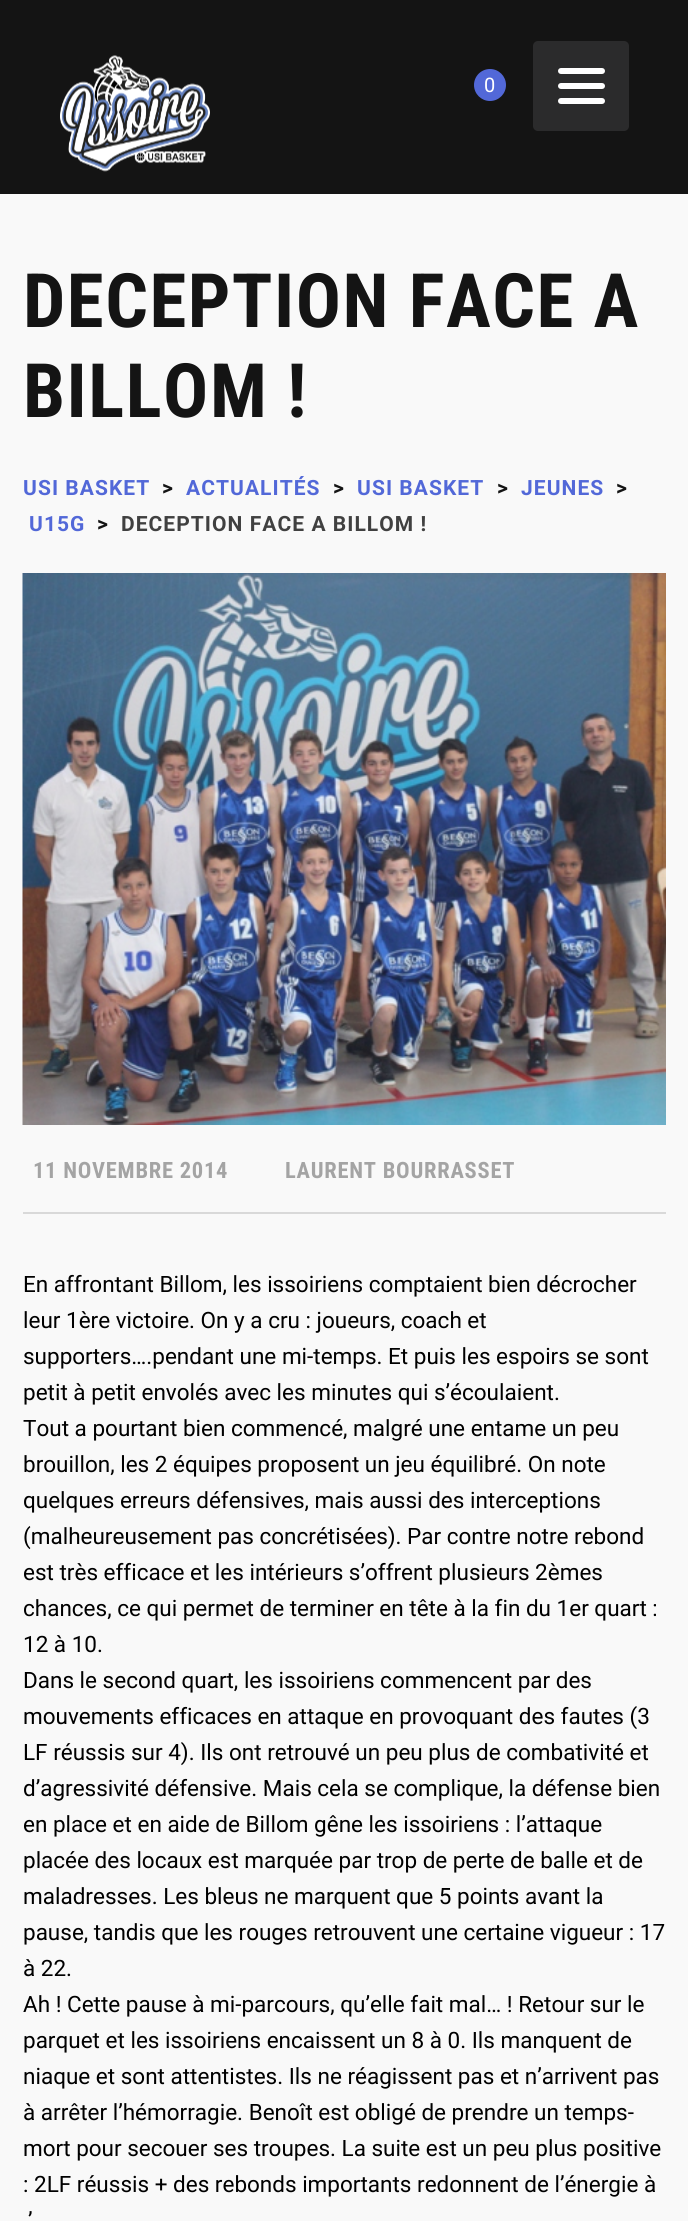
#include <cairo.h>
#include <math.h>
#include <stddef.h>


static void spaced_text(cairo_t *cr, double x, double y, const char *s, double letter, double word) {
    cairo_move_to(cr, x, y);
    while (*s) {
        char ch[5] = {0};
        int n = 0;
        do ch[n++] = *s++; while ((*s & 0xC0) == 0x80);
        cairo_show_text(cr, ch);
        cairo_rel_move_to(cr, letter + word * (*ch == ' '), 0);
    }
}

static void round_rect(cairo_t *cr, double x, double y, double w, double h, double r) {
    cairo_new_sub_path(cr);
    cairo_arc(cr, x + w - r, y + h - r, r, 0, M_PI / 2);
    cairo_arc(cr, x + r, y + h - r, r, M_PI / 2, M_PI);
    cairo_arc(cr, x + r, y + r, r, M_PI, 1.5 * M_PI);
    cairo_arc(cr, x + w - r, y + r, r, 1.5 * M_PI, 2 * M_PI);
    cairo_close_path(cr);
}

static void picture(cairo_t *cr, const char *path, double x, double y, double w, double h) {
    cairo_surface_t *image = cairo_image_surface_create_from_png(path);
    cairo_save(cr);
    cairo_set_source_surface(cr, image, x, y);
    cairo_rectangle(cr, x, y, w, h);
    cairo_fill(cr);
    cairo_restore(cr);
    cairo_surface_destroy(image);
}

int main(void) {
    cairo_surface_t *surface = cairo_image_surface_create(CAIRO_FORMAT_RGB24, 688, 2221);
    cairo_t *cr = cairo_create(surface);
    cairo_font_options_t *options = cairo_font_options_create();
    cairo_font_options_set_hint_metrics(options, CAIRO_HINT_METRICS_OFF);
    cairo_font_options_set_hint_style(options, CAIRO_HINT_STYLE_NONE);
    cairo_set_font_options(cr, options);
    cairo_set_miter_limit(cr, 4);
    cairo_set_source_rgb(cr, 0.973, 0.973, 0.973);
    cairo_paint(cr);
    cairo_set_source_rgb(cr, 0.082, 0.082, 0.082);
    cairo_rectangle(cr, 0, 0, 688, 194);
    cairo_fill(cr);
    picture(cr, "img1.png", 60, 55, 150, 117);
    cairo_set_source_rgb(cr, 0.322, 0.408, 0.847);
    cairo_arc(cr, 490, 85, 16, 0, 2 * M_PI);
    cairo_fill(cr);
    cairo_select_font_face(cr, "Roboto", CAIRO_FONT_SLANT_NORMAL, CAIRO_FONT_WEIGHT_NORMAL);
    cairo_set_font_size(cr, 20);
    cairo_set_source_rgb(cr, 1, 1, 1);
    cairo_move_to(cr, 484, 92);
    cairo_show_text(cr, "0");
    cairo_set_source_rgb(cr, 0.169, 0.169, 0.173);
    round_rect(cr, 533, 41, 96, 90, 5);
    cairo_fill(cr);
    cairo_set_source_rgb(cr, 1, 1, 1);
    round_rect(cr, 558, 68, 47, 6, 3);
    cairo_fill(cr);
    round_rect(cr, 558, 83, 47, 6, 3);
    cairo_fill(cr);
    round_rect(cr, 558, 98, 47, 6, 3);
    cairo_fill(cr);
    cairo_select_font_face(cr, "Roboto Condensed", CAIRO_FONT_SLANT_NORMAL, CAIRO_FONT_WEIGHT_BOLD);
    cairo_set_font_size(cr, 75);
    cairo_set_source_rgb(cr, 0.082, 0.082, 0.082);
    spaced_text(cr, 23, 327, "DECEPTION FACE A", 1.5, 0);
    spaced_text(cr, 23, 417, "BILLOM !", 1.5, 0);
    cairo_select_font_face(cr, "Roboto", CAIRO_FONT_SLANT_NORMAL, CAIRO_FONT_WEIGHT_BOLD);
    cairo_set_font_size(cr, 21);
    cairo_set_source_rgb(cr, 0.322, 0.408, 0.847);
    spaced_text(cr, 23, 495, "USI BASKET", 1.05, 0);
    cairo_set_source_rgb(cr, 0.082, 0.082, 0.082);
    spaced_text(cr, 162, 495, ">", 1.05, 0);
    cairo_set_source_rgb(cr, 0.322, 0.408, 0.847);
    spaced_text(cr, 186, 495, "ACTUALITÉS", 1.05, 0);
    cairo_set_source_rgb(cr, 0.082, 0.082, 0.082);
    spaced_text(cr, 333, 495, ">", 1.05, 0);
    cairo_set_source_rgb(cr, 0.322, 0.408, 0.847);
    spaced_text(cr, 357, 495, "USI BASKET", 1.05, 0);
    cairo_set_source_rgb(cr, 0.082, 0.082, 0.082);
    spaced_text(cr, 497, 495, ">", 1.05, 0);
    cairo_set_source_rgb(cr, 0.322, 0.408, 0.847);
    spaced_text(cr, 521, 495, "JEUNES", 1.05, 0);
    cairo_set_source_rgb(cr, 0.082, 0.082, 0.082);
    spaced_text(cr, 616, 495, ">", 1.05, 0);
    cairo_set_source_rgb(cr, 0.322, 0.408, 0.847);
    spaced_text(cr, 29, 531, "U15G", 1.05, 0);
    cairo_set_source_rgb(cr, 0.082, 0.082, 0.082);
    spaced_text(cr, 97, 531, ">", 1.05, 0);
    cairo_set_source_rgb(cr, 0.251, 0.251, 0.251);
    spaced_text(cr, 121, 531, "DECEPTION FACE A BILLOM !", 1.05, 0);
    picture(cr, "img2.png", 22, 573, 644, 552);
    cairo_set_source_rgb(cr, 0.851, 0.851, 0.851);
    cairo_rectangle(cr, 23, 1212, 643, 2);
    cairo_fill(cr);
    cairo_select_font_face(cr, "Roboto Condensed", CAIRO_FONT_SLANT_NORMAL, CAIRO_FONT_WEIGHT_BOLD);
    cairo_set_font_size(cr, 22.5);
    cairo_set_source_rgb(cr, 0.643, 0.643, 0.643);
    spaced_text(cr, 33, 1178, "11 NOVEMBRE 2014", 0.75, 0);
    spaced_text(cr, 285, 1178, "LAURENT BOURRASSET", 0.75, 0);
    cairo_select_font_face(cr, "Roboto", CAIRO_FONT_SLANT_NORMAL, CAIRO_FONT_WEIGHT_NORMAL);
    cairo_set_source_rgb(cr, 0, 0, 0);
    cairo_move_to(cr, 23, 1292);
    cairo_show_text(cr, "En affrontant Billom, les issoiriens comptaient bien décrocher");
    cairo_move_to(cr, 23, 1328);
    cairo_show_text(cr, "leur 1ère victoire. On y a cru : joueurs, coach et");
    cairo_move_to(cr, 23, 1364);
    cairo_show_text(cr, "supporters….pendant une mi-temps. Et puis les espoirs se sont");
    cairo_move_to(cr, 23, 1400);
    cairo_show_text(cr, "petit à petit envolés avec les minutes qui s’écoulaient.");
    cairo_move_to(cr, 23, 1436);
    cairo_show_text(cr, "Tout a pourtant bien commencé, malgré une entame un peu");
    cairo_move_to(cr, 23, 1472);
    cairo_show_text(cr, "brouillon, les 2 équipes proposent un jeu équilibré. On note");
    cairo_move_to(cr, 23, 1508);
    cairo_show_text(cr, "quelques erreurs défensives, mais aussi des interceptions");
    cairo_move_to(cr, 23, 1544);
    cairo_show_text(cr, "(malheureusement pas concrétisées). Par contre notre rebond");
    cairo_move_to(cr, 23, 1580);
    cairo_show_text(cr, "est très efficace et les intérieurs s’offrent plusieurs 2èmes");
    cairo_move_to(cr, 23, 1616);
    cairo_show_text(cr, "chances, ce qui permet de terminer en tête à la fin du 1er quart :");
    cairo_move_to(cr, 23, 1652);
    cairo_show_text(cr, "12 à 10.");
    cairo_move_to(cr, 23, 1688);
    cairo_show_text(cr, "Dans le second quart, les issoiriens commencent par des");
    cairo_move_to(cr, 23, 1724);
    cairo_show_text(cr, "mouvements efficaces en attaque en provoquant des fautes (3");
    cairo_move_to(cr, 23, 1760);
    cairo_show_text(cr, "LF réussis sur 4). Ils ont retrouvé un peu plus de combativité et");
    cairo_move_to(cr, 23, 1796);
    cairo_show_text(cr, "d’agressivité défensive. Mais cela se complique, la défense bien");
    cairo_move_to(cr, 23, 1832);
    cairo_show_text(cr, "en place et en aide de Billom gêne les issoiriens : l’attaque");
    cairo_move_to(cr, 23, 1868);
    cairo_show_text(cr, "placée des locaux est marquée par trop de perte de balle et de");
    cairo_move_to(cr, 23, 1904);
    cairo_show_text(cr, "maladresses. Les bleus ne marquent que 5 points avant la");
    cairo_move_to(cr, 23, 1940);
    cairo_show_text(cr, "pause, tandis que les rouges retrouvent une certaine vigueur : 17");
    cairo_move_to(cr, 23, 1976);
    cairo_show_text(cr, "à 22.");
    cairo_move_to(cr, 23, 2012);
    cairo_show_text(cr, "Ah ! Cette pause à mi-parcours, qu’elle fait mal… ! Retour sur le");
    cairo_move_to(cr, 23, 2048);
    cairo_show_text(cr, "parquet et les issoiriens encaissent un 8 à 0. Ils manquent de");
    cairo_move_to(cr, 23, 2084);
    cairo_show_text(cr, "niaque et sont attentistes. Ils ne réagissent pas et n’arrivent pas");
    cairo_move_to(cr, 23, 2120);
    cairo_show_text(cr, "à arrêter l’hémorragie. Benoît est obligé de prendre un temps-");
    cairo_move_to(cr, 23, 2156);
    cairo_show_text(cr, "mort pour secouer ses troupes. La suite est un peu plus positive");
    cairo_move_to(cr, 23, 2192);
    cairo_show_text(cr, ": 2LF réussis + des rebonds importants redonnent de l’énergie à");
    cairo_move_to(cr, 28, 2228);
    cairo_show_text(cr, "’");
    cairo_surface_write_to_png(surface, "page.png");
    cairo_font_options_destroy(options);
    cairo_destroy(cr);
    cairo_surface_destroy(surface);
    return 0;
}
